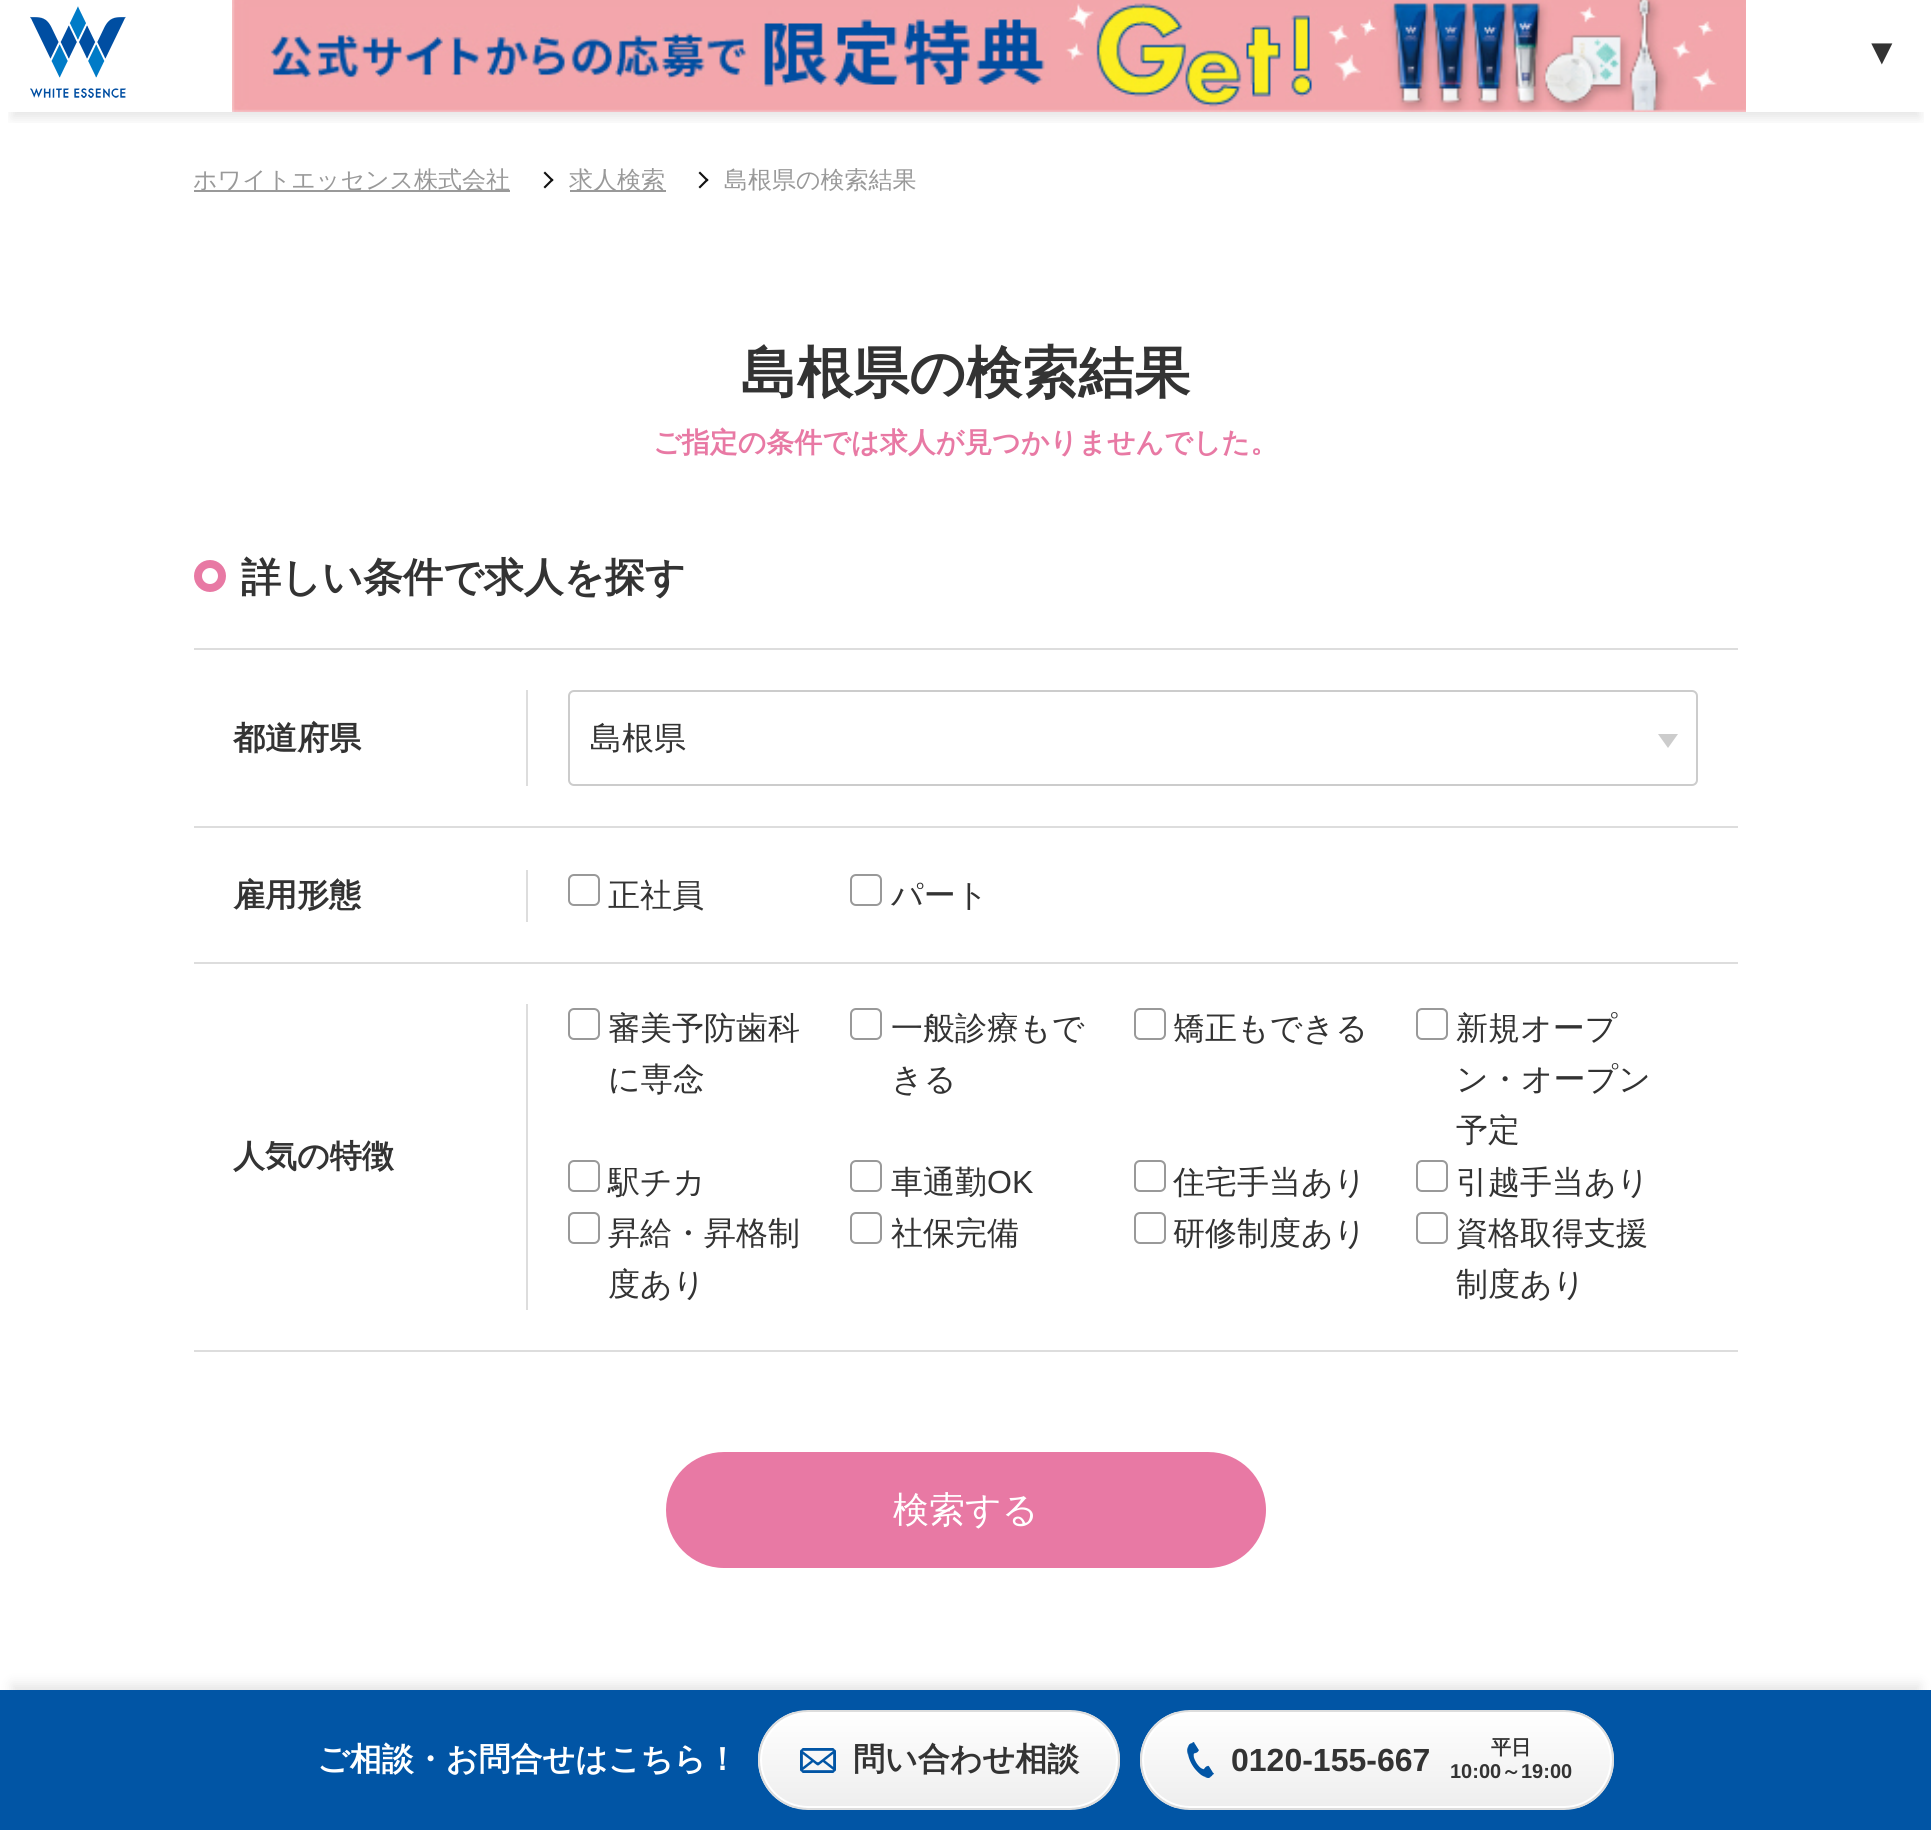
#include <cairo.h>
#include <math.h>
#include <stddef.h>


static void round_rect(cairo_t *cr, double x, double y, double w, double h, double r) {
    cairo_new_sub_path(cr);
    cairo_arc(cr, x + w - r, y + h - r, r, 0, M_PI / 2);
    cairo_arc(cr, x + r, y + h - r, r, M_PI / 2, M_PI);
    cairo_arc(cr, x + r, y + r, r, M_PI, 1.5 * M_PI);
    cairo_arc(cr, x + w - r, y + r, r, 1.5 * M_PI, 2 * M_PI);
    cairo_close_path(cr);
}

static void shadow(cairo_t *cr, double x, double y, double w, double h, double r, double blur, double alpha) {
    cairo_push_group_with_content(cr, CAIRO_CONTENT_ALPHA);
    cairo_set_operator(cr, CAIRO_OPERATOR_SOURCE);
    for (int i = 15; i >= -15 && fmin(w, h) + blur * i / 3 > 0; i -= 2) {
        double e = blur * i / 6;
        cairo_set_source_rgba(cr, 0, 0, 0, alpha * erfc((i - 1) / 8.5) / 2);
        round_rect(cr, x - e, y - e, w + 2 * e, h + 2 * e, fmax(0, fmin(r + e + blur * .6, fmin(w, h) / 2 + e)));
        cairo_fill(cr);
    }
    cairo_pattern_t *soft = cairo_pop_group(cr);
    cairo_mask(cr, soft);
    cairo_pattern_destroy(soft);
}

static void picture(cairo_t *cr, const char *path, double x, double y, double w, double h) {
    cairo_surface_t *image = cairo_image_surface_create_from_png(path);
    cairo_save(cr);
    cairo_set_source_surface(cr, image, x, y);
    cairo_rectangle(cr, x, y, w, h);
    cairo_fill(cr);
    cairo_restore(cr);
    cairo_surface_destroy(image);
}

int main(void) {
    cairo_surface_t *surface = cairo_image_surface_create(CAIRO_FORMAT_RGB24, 1931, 1830);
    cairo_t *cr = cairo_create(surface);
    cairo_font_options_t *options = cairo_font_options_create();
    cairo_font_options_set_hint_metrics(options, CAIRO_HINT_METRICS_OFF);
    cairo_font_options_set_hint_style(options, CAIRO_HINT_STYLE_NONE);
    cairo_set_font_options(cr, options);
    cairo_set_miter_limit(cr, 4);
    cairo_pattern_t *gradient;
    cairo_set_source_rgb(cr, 1, 1, 1);
    cairo_paint(cr);
    cairo_save(cr);
    cairo_rectangle(cr, 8, 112, 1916, 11);
    cairo_clip(cr);
    cairo_set_source_rgb(cr, 0, 0, 0);
    shadow(cr, 12, 22, 1908, 96, 0, 6, 0.1);
    cairo_restore(cr);
    picture(cr, "img1.png", 30, 6, 96, 92);
    picture(cr, "img2.png", 232, 0, 1514, 112);
    cairo_select_font_face(cr, "Liberation Sans", CAIRO_FONT_SLANT_NORMAL, CAIRO_FONT_WEIGHT_NORMAL);
    cairo_set_font_size(cr, 36);
    cairo_set_source_rgb(cr, 0.2, 0.2, 0.2);
    cairo_move_to(cr, 1864, 64);
    cairo_show_text(cr, "▼");
    cairo_set_source_rgb(cr, 0.6, 0.6, 0.6);
    cairo_rectangle(cr, 194, 190, 316, 2);
    cairo_fill(cr);
    cairo_select_font_face(cr, "WenQuanYi Zen Hei Medium", CAIRO_FONT_SLANT_NORMAL, CAIRO_FONT_WEIGHT_NORMAL);
    cairo_set_font_size(cr, 24);
    cairo_move_to(cr, 193, 188);
    cairo_show_text(cr, "ホワイトエッセンス株式会社");
    cairo_set_source_rgb(cr, 0.067, 0.067, 0.067);
    cairo_new_path(cr);
    cairo_move_to(cr, 543.5, 173);
    cairo_line_to(cr, 545, 171.5);
    cairo_line_to(cr, 553.5, 180);
    cairo_line_to(cr, 552, 181.5);
    cairo_close_path(cr);
    cairo_fill(cr);
    cairo_new_path(cr);
    cairo_move_to(cr, 543.5, 187);
    cairo_line_to(cr, 552, 178.5);
    cairo_line_to(cr, 553.5, 180);
    cairo_line_to(cr, 545, 188.5);
    cairo_close_path(cr);
    cairo_fill(cr);
    cairo_set_source_rgb(cr, 0.6, 0.6, 0.6);
    cairo_rectangle(cr, 570, 190, 96, 2);
    cairo_fill(cr);
    cairo_move_to(cr, 569, 188);
    cairo_show_text(cr, "求人検索");
    cairo_set_source_rgb(cr, 0.067, 0.067, 0.067);
    cairo_new_path(cr);
    cairo_move_to(cr, 698.5, 173);
    cairo_line_to(cr, 700, 171.5);
    cairo_line_to(cr, 708.5, 180);
    cairo_line_to(cr, 707, 181.5);
    cairo_close_path(cr);
    cairo_fill(cr);
    cairo_new_path(cr);
    cairo_move_to(cr, 698.5, 187);
    cairo_line_to(cr, 707, 178.5);
    cairo_line_to(cr, 708.5, 180);
    cairo_line_to(cr, 700, 188.5);
    cairo_close_path(cr);
    cairo_fill(cr);
    cairo_set_source_rgb(cr, 0.6, 0.6, 0.6);
    cairo_move_to(cr, 724, 188);
    cairo_show_text(cr, "島根県の検索結果");
    cairo_select_font_face(cr, "WenQuanYi Zen Hei", CAIRO_FONT_SLANT_NORMAL, CAIRO_FONT_WEIGHT_BOLD);
    cairo_set_font_size(cr, 56);
    cairo_set_source_rgb(cr, 0.2, 0.2, 0.2);
    cairo_move_to(cr, 741, 392);
    cairo_show_text(cr, "島根県の検索結果");
    cairo_set_font_size(cr, 28);
    cairo_set_source_rgb(cr, 0.91, 0.475, 0.643);
    cairo_move_to(cr, 653, 452);
    cairo_show_text(cr, "ご指定の条件では求人が見つかりませんでした。");
    cairo_new_path(cr);
    cairo_arc(cr, 210, 576, 12, 0, 2 * M_PI);
    cairo_set_line_width(cr, 8);
    cairo_stroke(cr);
    cairo_set_font_size(cr, 40);
    cairo_set_source_rgb(cr, 0.2, 0.2, 0.2);
    cairo_move_to(cr, 241, 591);
    cairo_show_text(cr, "詳しい条件で求人を探す");
    cairo_set_source_rgb(cr, 0.867, 0.867, 0.867);
    cairo_rectangle(cr, 194, 648, 1544, 2);
    cairo_fill(cr);
    cairo_rectangle(cr, 194, 826, 1544, 2);
    cairo_fill(cr);
    cairo_set_font_size(cr, 32);
    cairo_set_source_rgb(cr, 0.2, 0.2, 0.2);
    cairo_move_to(cr, 233, 749);
    cairo_show_text(cr, "都道府県");
    cairo_set_source_rgb(cr, 0.867, 0.867, 0.867);
    cairo_rectangle(cr, 526, 690, 2, 96);
    cairo_fill(cr);
    cairo_set_source_rgb(cr, 0.8, 0.8, 0.8);
    cairo_new_path(cr);
    cairo_move_to(cr, 1658, 734);
    cairo_line_to(cr, 1678, 734);
    cairo_line_to(cr, 1668, 748);
    cairo_close_path(cr);
    cairo_fill(cr);
    round_rect(cr, 569, 691, 1128, 94, 5);
    cairo_set_line_width(cr, 2);
    cairo_stroke(cr);
    cairo_select_font_face(cr, "WenQuanYi Zen Hei Medium", CAIRO_FONT_SLANT_NORMAL, CAIRO_FONT_WEIGHT_NORMAL);
    cairo_set_source_rgb(cr, 0.2, 0.2, 0.2);
    cairo_move_to(cr, 590, 749);
    cairo_show_text(cr, "島根県");
    cairo_set_source_rgb(cr, 0.867, 0.867, 0.867);
    cairo_rectangle(cr, 194, 962, 1544, 2);
    cairo_fill(cr);
    cairo_select_font_face(cr, "WenQuanYi Zen Hei", CAIRO_FONT_SLANT_NORMAL, CAIRO_FONT_WEIGHT_BOLD);
    cairo_set_source_rgb(cr, 0.2, 0.2, 0.2);
    cairo_move_to(cr, 233, 906);
    cairo_show_text(cr, "雇用形態");
    cairo_set_source_rgb(cr, 0.867, 0.867, 0.867);
    cairo_rectangle(cr, 526, 870, 2, 52);
    cairo_fill(cr);
    round_rect(cr, 569, 875, 30, 30, 5);
    cairo_set_source_rgb(cr, 0.6, 0.6, 0.6);
    cairo_stroke(cr);
    cairo_select_font_face(cr, "WenQuanYi Zen Hei Medium", CAIRO_FONT_SLANT_NORMAL, CAIRO_FONT_WEIGHT_NORMAL);
    cairo_set_source_rgb(cr, 0.2, 0.2, 0.2);
    cairo_move_to(cr, 608, 906);
    cairo_show_text(cr, "正社員");
    round_rect(cr, 851, 875, 30, 30, 5);
    cairo_set_source_rgb(cr, 0.6, 0.6, 0.6);
    cairo_stroke(cr);
    cairo_set_source_rgb(cr, 0.2, 0.2, 0.2);
    cairo_move_to(cr, 891, 906);
    cairo_show_text(cr, "パート");
    cairo_set_source_rgb(cr, 0.867, 0.867, 0.867);
    cairo_rectangle(cr, 194, 1350, 1544, 2);
    cairo_fill(cr);
    cairo_select_font_face(cr, "WenQuanYi Zen Hei", CAIRO_FONT_SLANT_NORMAL, CAIRO_FONT_WEIGHT_BOLD);
    cairo_set_source_rgb(cr, 0.2, 0.2, 0.2);
    cairo_move_to(cr, 233, 1167);
    cairo_show_text(cr, "人気の特徴");
    cairo_set_source_rgb(cr, 0.867, 0.867, 0.867);
    cairo_rectangle(cr, 526, 1004, 2, 306);
    cairo_fill(cr);
    round_rect(cr, 569, 1009, 30, 30, 5);
    cairo_set_source_rgb(cr, 0.6, 0.6, 0.6);
    cairo_stroke(cr);
    cairo_select_font_face(cr, "WenQuanYi Zen Hei Medium", CAIRO_FONT_SLANT_NORMAL, CAIRO_FONT_WEIGHT_NORMAL);
    cairo_set_source_rgb(cr, 0.2, 0.2, 0.2);
    cairo_move_to(cr, 608, 1039);
    cairo_show_text(cr, "審美予防歯科");
    cairo_move_to(cr, 608, 1090);
    cairo_show_text(cr, "に専念");
    round_rect(cr, 851, 1009, 30, 30, 5);
    cairo_set_source_rgb(cr, 0.6, 0.6, 0.6);
    cairo_stroke(cr);
    cairo_set_source_rgb(cr, 0.2, 0.2, 0.2);
    cairo_move_to(cr, 891, 1039);
    cairo_show_text(cr, "一般診療もで");
    cairo_move_to(cr, 891, 1090);
    cairo_show_text(cr, "きる");
    round_rect(cr, 1135, 1009, 30, 30, 5);
    cairo_set_source_rgb(cr, 0.6, 0.6, 0.6);
    cairo_stroke(cr);
    cairo_set_source_rgb(cr, 0.2, 0.2, 0.2);
    cairo_move_to(cr, 1173, 1039);
    cairo_show_text(cr, "矯正もできる");
    round_rect(cr, 1417, 1009, 30, 30, 5);
    cairo_set_source_rgb(cr, 0.6, 0.6, 0.6);
    cairo_stroke(cr);
    cairo_set_source_rgb(cr, 0.2, 0.2, 0.2);
    cairo_move_to(cr, 1456, 1039);
    cairo_show_text(cr, "新規オープ");
    cairo_move_to(cr, 1456, 1090);
    cairo_show_text(cr, "ン・オープン");
    cairo_move_to(cr, 1456, 1141);
    cairo_show_text(cr, "予定");
    round_rect(cr, 569, 1161, 30, 30, 5);
    cairo_set_source_rgb(cr, 0.6, 0.6, 0.6);
    cairo_stroke(cr);
    cairo_set_source_rgb(cr, 0.2, 0.2, 0.2);
    cairo_move_to(cr, 608, 1193);
    cairo_show_text(cr, "駅チカ");
    round_rect(cr, 851, 1161, 30, 30, 5);
    cairo_set_source_rgb(cr, 0.6, 0.6, 0.6);
    cairo_stroke(cr);
    cairo_set_source_rgb(cr, 0.2, 0.2, 0.2);
    cairo_move_to(cr, 891, 1193);
    cairo_show_text(cr, "車通勤");
    cairo_select_font_face(cr, "Liberation Sans", CAIRO_FONT_SLANT_NORMAL, CAIRO_FONT_WEIGHT_NORMAL);
    cairo_move_to(cr, 987, 1193);
    cairo_show_text(cr, "OK");
    round_rect(cr, 1135, 1161, 30, 30, 5);
    cairo_set_source_rgb(cr, 0.6, 0.6, 0.6);
    cairo_stroke(cr);
    cairo_select_font_face(cr, "WenQuanYi Zen Hei Medium", CAIRO_FONT_SLANT_NORMAL, CAIRO_FONT_WEIGHT_NORMAL);
    cairo_set_source_rgb(cr, 0.2, 0.2, 0.2);
    cairo_move_to(cr, 1173, 1193);
    cairo_show_text(cr, "住宅手当あり");
    round_rect(cr, 1417, 1161, 30, 30, 5);
    cairo_set_source_rgb(cr, 0.6, 0.6, 0.6);
    cairo_stroke(cr);
    cairo_set_source_rgb(cr, 0.2, 0.2, 0.2);
    cairo_move_to(cr, 1456, 1193);
    cairo_show_text(cr, "引越手当あり");
    round_rect(cr, 569, 1213, 30, 30, 5);
    cairo_set_source_rgb(cr, 0.6, 0.6, 0.6);
    cairo_stroke(cr);
    cairo_set_source_rgb(cr, 0.2, 0.2, 0.2);
    cairo_move_to(cr, 608, 1244);
    cairo_show_text(cr, "昇給・昇格制");
    cairo_move_to(cr, 608, 1295);
    cairo_show_text(cr, "度あり");
    round_rect(cr, 851, 1213, 30, 30, 5);
    cairo_set_source_rgb(cr, 0.6, 0.6, 0.6);
    cairo_stroke(cr);
    cairo_set_source_rgb(cr, 0.2, 0.2, 0.2);
    cairo_move_to(cr, 891, 1244);
    cairo_show_text(cr, "社保完備");
    round_rect(cr, 1135, 1213, 30, 30, 5);
    cairo_set_source_rgb(cr, 0.6, 0.6, 0.6);
    cairo_stroke(cr);
    cairo_set_source_rgb(cr, 0.2, 0.2, 0.2);
    cairo_move_to(cr, 1173, 1244);
    cairo_show_text(cr, "研修制度あり");
    round_rect(cr, 1417, 1213, 30, 30, 5);
    cairo_set_source_rgb(cr, 0.6, 0.6, 0.6);
    cairo_stroke(cr);
    cairo_set_source_rgb(cr, 0.2, 0.2, 0.2);
    cairo_move_to(cr, 1456, 1244);
    cairo_show_text(cr, "資格取得支援");
    cairo_move_to(cr, 1456, 1295);
    cairo_show_text(cr, "制度あり");
    cairo_set_source_rgb(cr, 0.91, 0.475, 0.643);
    round_rect(cr, 666, 1452, 600, 116, 58);
    cairo_fill(cr);
    cairo_set_font_size(cr, 36);
    cairo_set_source_rgb(cr, 1, 1, 1);
    cairo_move_to(cr, 893, 1522);
    cairo_show_text(cr, "検索する");
    cairo_set_source_rgb(cr, 0, 0, 0);
    shadow(cr, 12, 1684, 1908, 116, 0, 6, 0.1);
    cairo_set_source_rgb(cr, 0.004, 0.333, 0.647);
    cairo_rectangle(cr, 0, 1690, 1931, 140);
    cairo_fill(cr);
    cairo_select_font_face(cr, "WenQuanYi Zen Hei", CAIRO_FONT_SLANT_NORMAL, CAIRO_FONT_WEIGHT_BOLD);
    cairo_set_font_size(cr, 32);
    cairo_set_source_rgb(cr, 1, 1, 1);
    cairo_move_to(cr, 317, 1770);
    cairo_show_text(cr, "ご相談・お問合せはこちら！");
    cairo_save(cr);
    round_rect(cr, 758, 1710, 362, 100, 50);
    cairo_clip(cr);
    gradient = cairo_pattern_create_linear(939, 1712, 939, 1808);
    cairo_pattern_add_color_stop_rgba(gradient, 0, 1, 1, 1, 1);
    cairo_pattern_add_color_stop_rgba(gradient, 1, 0.933, 0.933, 0.933, 1);
    cairo_set_source(cr, gradient);
    cairo_pattern_destroy(gradient);
    cairo_rectangle(cr, 758, 1712, 362, 96);
    cairo_fill(cr);
    cairo_restore(cr);
    round_rect(cr, 761, 1713, 356, 94, 47);
    cairo_stroke(cr);
    round_rect(cr, 759, 1711, 360, 98, 49);
    cairo_set_source_rgb(cr, 0.867, 0.867, 0.867);
    cairo_stroke(cr);
    picture(cr, "img3.png", 800, 1748, 36, 25);
    cairo_set_source_rgb(cr, 0.2, 0.2, 0.2);
    cairo_move_to(cr, 853, 1770);
    cairo_show_text(cr, "問い合わせ相談");
    cairo_save(cr);
    round_rect(cr, 1140, 1710, 474, 100, 50);
    cairo_clip(cr);
    gradient = cairo_pattern_create_linear(1377, 1712, 1377, 1808);
    cairo_pattern_add_color_stop_rgba(gradient, 0, 1, 1, 1, 1);
    cairo_pattern_add_color_stop_rgba(gradient, 1, 0.933, 0.933, 0.933, 1);
    cairo_set_source(cr, gradient);
    cairo_pattern_destroy(gradient);
    cairo_rectangle(cr, 1140, 1712, 474, 96);
    cairo_fill(cr);
    cairo_restore(cr);
    round_rect(cr, 1143, 1713, 468, 94, 47);
    cairo_set_source_rgb(cr, 1, 1, 1);
    cairo_stroke(cr);
    round_rect(cr, 1141, 1711, 472, 98, 49);
    cairo_set_source_rgb(cr, 0.867, 0.867, 0.867);
    cairo_stroke(cr);
    picture(cr, "img4.png", 1187, 1742, 27, 36);
    cairo_select_font_face(cr, "Liberation Sans", CAIRO_FONT_SLANT_NORMAL, CAIRO_FONT_WEIGHT_BOLD);
    cairo_set_source_rgb(cr, 0.2, 0.2, 0.2);
    cairo_move_to(cr, 1231, 1771);
    cairo_show_text(cr, "0120-155-667");
    cairo_select_font_face(cr, "WenQuanYi Zen Hei", CAIRO_FONT_SLANT_NORMAL, CAIRO_FONT_WEIGHT_BOLD);
    cairo_set_font_size(cr, 20);
    cairo_move_to(cr, 1491, 1754);
    cairo_show_text(cr, "平日");
    cairo_select_font_face(cr, "Liberation Sans", CAIRO_FONT_SLANT_NORMAL, CAIRO_FONT_WEIGHT_BOLD);
    cairo_move_to(cr, 1450, 1778);
    cairo_show_text(cr, "10:00");
    cairo_select_font_face(cr, "WenQuanYi Zen Hei", CAIRO_FONT_SLANT_NORMAL, CAIRO_FONT_WEIGHT_BOLD);
    cairo_move_to(cr, 1501, 1778);
    cairo_show_text(cr, "～");
    cairo_select_font_face(cr, "Liberation Sans", CAIRO_FONT_SLANT_NORMAL, CAIRO_FONT_WEIGHT_BOLD);
    cairo_move_to(cr, 1521, 1778);
    cairo_show_text(cr, "19:00");
    cairo_surface_write_to_png(surface, "page.png");
    cairo_font_options_destroy(options);
    cairo_destroy(cr);
    cairo_surface_destroy(surface);
    return 0;
}
